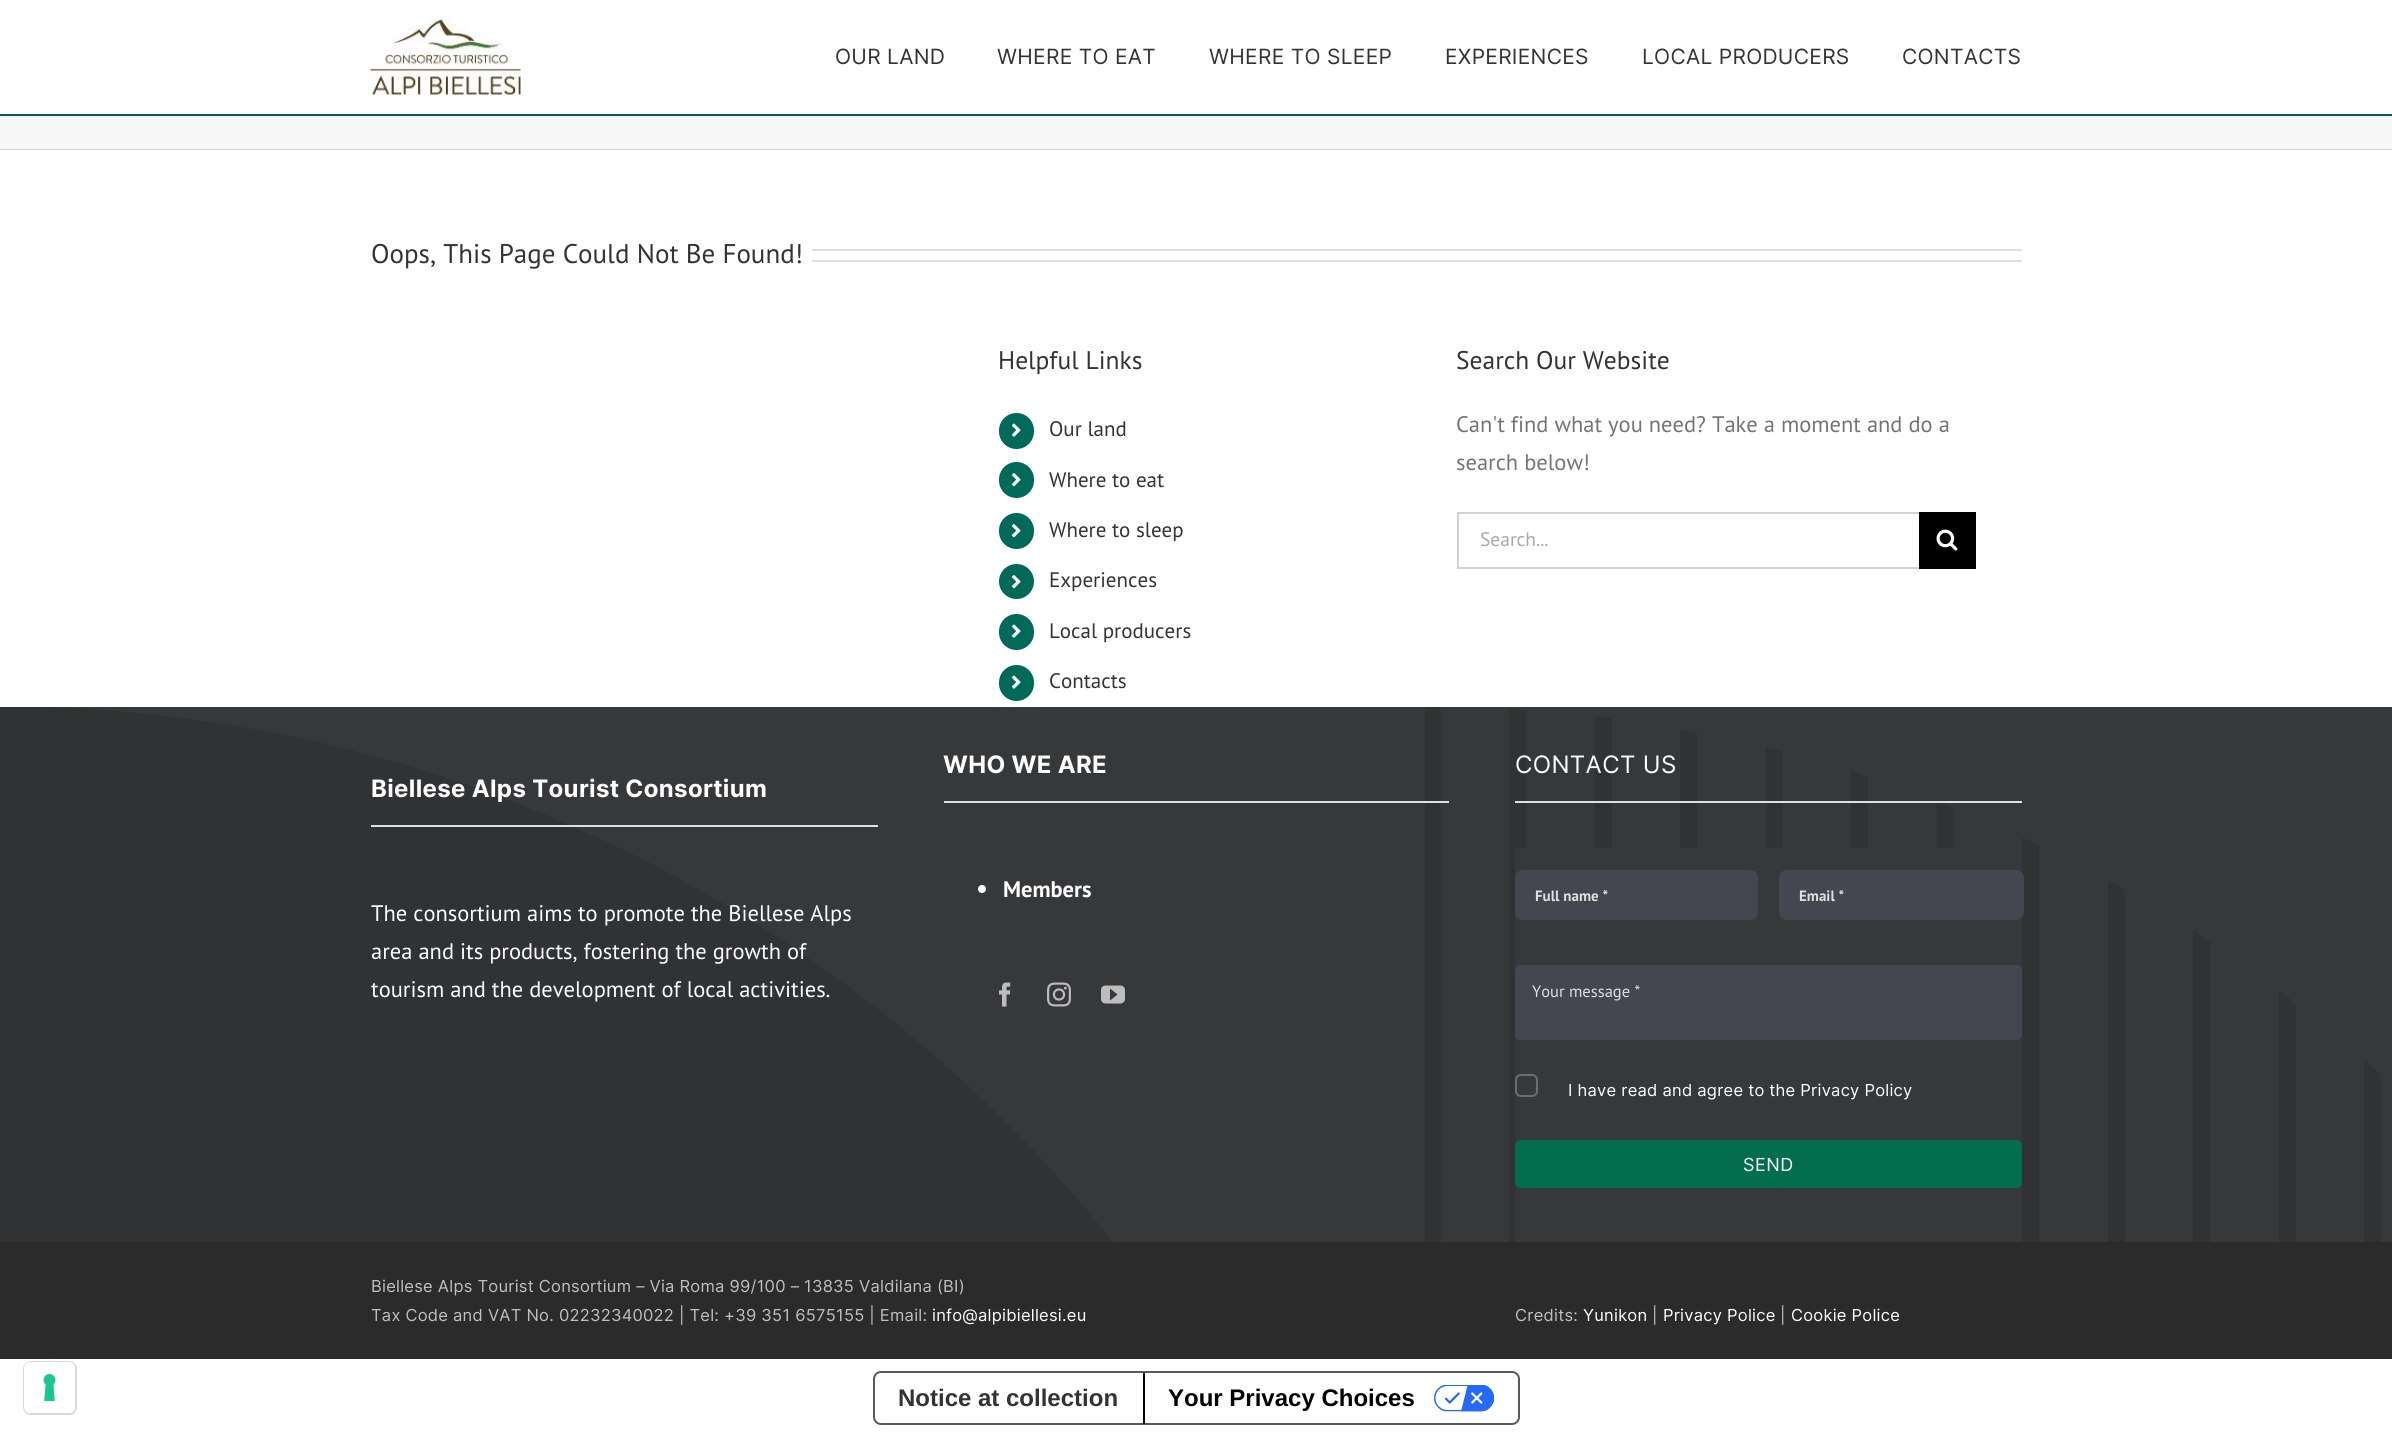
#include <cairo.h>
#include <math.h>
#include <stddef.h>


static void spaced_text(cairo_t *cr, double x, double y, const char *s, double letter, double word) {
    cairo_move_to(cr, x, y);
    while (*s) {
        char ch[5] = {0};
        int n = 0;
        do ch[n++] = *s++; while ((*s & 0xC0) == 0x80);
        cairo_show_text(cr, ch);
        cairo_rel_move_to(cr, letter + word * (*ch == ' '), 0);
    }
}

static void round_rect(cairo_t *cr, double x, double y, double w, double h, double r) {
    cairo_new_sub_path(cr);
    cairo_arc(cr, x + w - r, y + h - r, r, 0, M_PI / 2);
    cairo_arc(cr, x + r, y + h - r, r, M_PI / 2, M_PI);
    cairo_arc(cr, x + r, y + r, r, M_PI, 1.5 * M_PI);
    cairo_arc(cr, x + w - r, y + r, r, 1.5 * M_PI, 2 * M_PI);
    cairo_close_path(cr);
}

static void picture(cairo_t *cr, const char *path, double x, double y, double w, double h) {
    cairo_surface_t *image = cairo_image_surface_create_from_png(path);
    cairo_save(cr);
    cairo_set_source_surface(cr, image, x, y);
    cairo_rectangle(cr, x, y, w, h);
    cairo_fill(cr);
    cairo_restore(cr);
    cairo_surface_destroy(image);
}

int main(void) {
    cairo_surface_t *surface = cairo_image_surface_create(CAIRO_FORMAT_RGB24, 2392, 1437);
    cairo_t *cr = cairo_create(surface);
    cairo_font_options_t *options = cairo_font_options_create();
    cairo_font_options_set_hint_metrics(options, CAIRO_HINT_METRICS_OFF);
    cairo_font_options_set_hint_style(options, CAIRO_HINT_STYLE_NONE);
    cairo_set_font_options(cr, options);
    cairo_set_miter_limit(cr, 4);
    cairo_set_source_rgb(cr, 1, 1, 1);
    cairo_paint(cr);
    cairo_set_source_rgb(cr, 0.031, 0.365, 0.314);
    cairo_rectangle(cr, 0, 114, 2392, 2);
    cairo_fill(cr);
    picture(cr, "img1.png", 370, 19, 151, 76);
    cairo_select_font_face(cr, "Inter", CAIRO_FONT_SLANT_NORMAL, CAIRO_FONT_WEIGHT_NORMAL);
    cairo_set_font_size(cr, 21);
    cairo_set_source_rgb(cr, 0.2, 0.2, 0.2);
    spaced_text(cr, 835, 64, "OUR LAND", 0.3, 0);
    spaced_text(cr, 997, 64, "WHERE TO EAT", 0.3, 0);
    spaced_text(cr, 1209, 64, "WHERE TO SLEEP", 0.3, 0);
    spaced_text(cr, 1445, 64, "EXPERIENCES", 0.3, 0);
    spaced_text(cr, 1642, 64, "LOCAL PRODUCERS", 0.3, 0);
    spaced_text(cr, 1902, 64, "CONTACTS", 0.3, 0);
    cairo_set_source_rgb(cr, 0.965, 0.965, 0.965);
    cairo_rectangle(cr, 0, 116, 2392, 33);
    cairo_fill(cr);
    cairo_set_source_rgb(cr, 0.824, 0.827, 0.831);
    cairo_rectangle(cr, 0, 149, 2392, 1);
    cairo_fill(cr);
    cairo_select_font_face(cr, "PT Sans", CAIRO_FONT_SLANT_NORMAL, CAIRO_FONT_WEIGHT_NORMAL);
    cairo_set_font_size(cr, 27);
    cairo_set_source_rgb(cr, 0.2, 0.2, 0.2);
    cairo_move_to(cr, 371, 263);
    cairo_show_text(cr, "Oops, This Page Could Not Be Found!");
    cairo_set_source_rgb(cr, 0.878, 0.871, 0.871);
    cairo_rectangle(cr, 812, 249, 1210, 2);
    cairo_fill(cr);
    cairo_rectangle(cr, 812, 260, 1210, 2);
    cairo_fill(cr);
    cairo_set_font_size(cr, 25.5);
    cairo_set_source_rgb(cr, 0.2, 0.2, 0.2);
    cairo_move_to(cr, 998, 369);
    cairo_show_text(cr, "Helpful Links");
    cairo_set_source_rgb(cr, 0, 0.412, 0.353);
    round_rect(cr, 999, 413, 35, 36, 17.5);
    cairo_fill(cr);
    picture(cr, "img2.png", 1012, 423, 9, 14);
    cairo_set_font_size(cr, 21);
    cairo_set_source_rgb(cr, 0.2, 0.2, 0.2);
    cairo_move_to(cr, 1049, 436);
    cairo_show_text(cr, "Our land");
    cairo_set_source_rgb(cr, 0, 0.412, 0.353);
    round_rect(cr, 999, 462, 35, 36, 17.5);
    cairo_fill(cr);
    picture(cr, "img3.png", 1012, 473, 9, 14);
    cairo_set_source_rgb(cr, 0.2, 0.2, 0.2);
    cairo_move_to(cr, 1049, 487);
    cairo_show_text(cr, "Where to eat");
    cairo_set_source_rgb(cr, 0, 0.412, 0.353);
    round_rect(cr, 999, 513, 35, 36, 17.5);
    cairo_fill(cr);
    picture(cr, "img3.png", 1012, 524, 9, 14);
    cairo_set_source_rgb(cr, 0.2, 0.2, 0.2);
    cairo_move_to(cr, 1049, 537);
    cairo_show_text(cr, "Where to sleep");
    cairo_set_source_rgb(cr, 0, 0.412, 0.353);
    cairo_new_path(cr);
    cairo_arc(cr, 1016.5, 581.5, 17.5, 0, 2 * M_PI);
    cairo_fill(cr);
    picture(cr, "img3.png", 1012, 575, 9, 14);
    cairo_set_source_rgb(cr, 0.2, 0.2, 0.2);
    cairo_move_to(cr, 1049, 587);
    cairo_show_text(cr, "Experiences");
    cairo_set_source_rgb(cr, 0, 0.412, 0.353);
    round_rect(cr, 999, 614, 35, 36, 17.5);
    cairo_fill(cr);
    picture(cr, "img2.png", 1012, 624, 9, 14);
    cairo_set_source_rgb(cr, 0.2, 0.2, 0.2);
    cairo_move_to(cr, 1049, 638);
    cairo_show_text(cr, "Local producers");
    cairo_set_source_rgb(cr, 0, 0.412, 0.353);
    round_rect(cr, 999, 665, 35, 36, 17.5);
    cairo_fill(cr);
    picture(cr, "img2.png", 1012, 675, 9, 14);
    cairo_set_source_rgb(cr, 0.2, 0.2, 0.2);
    cairo_move_to(cr, 1049, 688);
    cairo_show_text(cr, "Contacts");
    cairo_set_font_size(cr, 25.5);
    cairo_move_to(cr, 1456, 369);
    cairo_show_text(cr, "Search Our Website");
    cairo_set_font_size(cr, 22.5);
    cairo_set_source_rgb(cr, 0.455, 0.455, 0.455);
    cairo_move_to(cr, 1456, 432);
    cairo_show_text(cr, "Can't find what you need? Take a moment and do a");
    cairo_move_to(cr, 1456, 470);
    cairo_show_text(cr, "search below!");
    cairo_set_source_rgb(cr, 0.824, 0.824, 0.824);
    cairo_rectangle(cr, 1457, 512, 462, 2);
    cairo_fill(cr);
    cairo_rectangle(cr, 1457, 567, 462, 2);
    cairo_fill(cr);
    cairo_rectangle(cr, 1457, 512, 2, 57);
    cairo_fill(cr);
    cairo_set_font_size(cr, 19.5);
    cairo_set_source_rgb(cr, 0.667, 0.663, 0.663);
    cairo_move_to(cr, 1480, 546);
    cairo_show_text(cr, "Search...");
    cairo_set_source_rgb(cr, 0, 0, 0);
    cairo_rectangle(cr, 1919, 512, 57, 57);
    cairo_fill(cr);
    picture(cr, "img4.png", 1936, 529, 22, 22);
    cairo_set_source_rgb(cr, 0.212, 0.22, 0.224);
    cairo_rectangle(cr, 0, 707, 2392, 535);
    cairo_fill(cr);
    picture(cr, "img5.png", 0, 707, 2381, 535);
    cairo_set_source_rgb(cr, 0.878, 0.871, 0.871);
    cairo_rectangle(cr, 371, 825, 507, 2);
    cairo_fill(cr);
    cairo_select_font_face(cr, "Inter", CAIRO_FONT_SLANT_NORMAL, CAIRO_FONT_WEIGHT_BOLD);
    cairo_set_font_size(cr, 24);
    cairo_set_source_rgb(cr, 1, 1, 1);
    spaced_text(cr, 371, 797, "Biellese Alps Tourist Consortium", 0.35, 0);
    cairo_select_font_face(cr, "PT Sans", CAIRO_FONT_SLANT_NORMAL, CAIRO_FONT_WEIGHT_NORMAL);
    cairo_set_font_size(cr, 22.5);
    cairo_move_to(cr, 371, 921);
    cairo_show_text(cr, "The consortium aims to promote the Biellese Alps");
    cairo_move_to(cr, 371, 959);
    cairo_show_text(cr, "area and its products, fostering the growth of");
    cairo_move_to(cr, 371, 997);
    cairo_show_text(cr, "tourism and the development of local activities.");
    cairo_set_source_rgb(cr, 0.878, 0.871, 0.871);
    cairo_rectangle(cr, 944, 801, 505, 2);
    cairo_fill(cr);
    cairo_select_font_face(cr, "Inter", CAIRO_FONT_SLANT_NORMAL, CAIRO_FONT_WEIGHT_BOLD);
    cairo_set_font_size(cr, 24);
    cairo_set_source_rgb(cr, 1, 1, 1);
    spaced_text(cr, 943, 773, "WHO WE ARE", 0.35, 0);
    cairo_new_path(cr);
    cairo_arc(cr, 982, 889, 4, 0, 2 * M_PI);
    cairo_fill(cr);
    cairo_select_font_face(cr, "PT Sans", CAIRO_FONT_SLANT_NORMAL, CAIRO_FONT_WEIGHT_BOLD);
    cairo_set_font_size(cr, 22.5);
    cairo_move_to(cr, 1003, 897);
    cairo_show_text(cr, "Members");
    picture(cr, "img6.png", 999, 982, 12, 25);
    picture(cr, "img7.png", 1047, 982, 24, 25);
    picture(cr, "img8.png", 1101, 985, 24, 19);
    cairo_set_source_rgb(cr, 0.878, 0.871, 0.871);
    cairo_rectangle(cr, 1515, 801, 507, 2);
    cairo_fill(cr);
    cairo_select_font_face(cr, "Inter", CAIRO_FONT_SLANT_NORMAL, CAIRO_FONT_WEIGHT_NORMAL);
    cairo_set_font_size(cr, 24);
    cairo_set_source_rgb(cr, 1, 1, 1);
    spaced_text(cr, 1515, 773, "CONTACT US", 0.35, 0);
    cairo_set_source_rgb(cr, 0.212, 0.22, 0.224);
    cairo_rectangle(cr, 1515, 848, 439, 394);
    cairo_fill(cr);
    cairo_set_source_rgb(cr, 0.267, 0.275, 0.314);
    round_rect(cr, 1515, 870, 243, 50, 8);
    cairo_fill(cr);
    cairo_select_font_face(cr, "PT Sans", CAIRO_FONT_SLANT_NORMAL, CAIRO_FONT_WEIGHT_BOLD);
    cairo_set_font_size(cr, 15);
    cairo_set_source_rgb(cr, 0.878, 0.871, 0.871);
    cairo_move_to(cr, 1535, 901);
    cairo_show_text(cr, "Full name *");
    cairo_set_source_rgb(cr, 0.267, 0.275, 0.314);
    round_rect(cr, 1779, 870, 245, 50, 8);
    cairo_fill(cr);
    cairo_set_source_rgb(cr, 0.878, 0.871, 0.871);
    cairo_move_to(cr, 1799, 901);
    cairo_show_text(cr, "Email *");
    cairo_set_source_rgb(cr, 0.267, 0.275, 0.314);
    round_rect(cr, 1515, 965, 507, 75, 5);
    cairo_fill(cr);
    cairo_select_font_face(cr, "PT Sans", CAIRO_FONT_SLANT_NORMAL, CAIRO_FONT_WEIGHT_NORMAL);
    cairo_set_font_size(cr, 16.5);
    cairo_set_source_rgb(cr, 0.878, 0.871, 0.871);
    cairo_move_to(cr, 1532, 997);
    cairo_show_text(cr, "Your message *");
    round_rect(cr, 1516, 1075, 21, 21, 5);
    cairo_set_source_rgb(cr, 0.427, 0.427, 0.427);
    cairo_stroke(cr);
    cairo_select_font_face(cr, "Inter", CAIRO_FONT_SLANT_NORMAL, CAIRO_FONT_WEIGHT_NORMAL);
    cairo_set_source_rgb(cr, 1, 1, 1);
    spaced_text(cr, 1568, 1096, "I have read and agree to the Privacy Policy", 0.25, 0);
    cairo_set_source_rgb(cr, 0.016, 0.427, 0.306);
    round_rect(cr, 1515, 1140, 507, 48, 6);
    cairo_fill(cr);
    cairo_set_font_size(cr, 18);
    cairo_set_source_rgb(cr, 1, 1, 1);
    spaced_text(cr, 1743, 1171, "SEND", 0.5, 0);
    cairo_set_source_rgb(cr, 0.169, 0.169, 0.169);
    cairo_rectangle(cr, 0, 1242, 2392, 117);
    cairo_fill(cr);
    cairo_set_font_size(cr, 16.5);
    cairo_set_source_rgb(cr, 0.749, 0.749, 0.749);
    spaced_text(cr, 371, 1292, "Biellese Alps Tourist Consortium – Via Roma 99/100 – 13835 Valdilana (BI)", 0.25, 0);
    spaced_text(cr, 371, 1321, "Tax Code and VAT No. 02232340022 | Tel: +39 351 6575155 | Email:", 0.25, 0);
    cairo_set_source_rgb(cr, 1, 1, 1);
    spaced_text(cr, 932, 1321, "info@alpibiellesi.eu", 0.25, 0);
    cairo_set_source_rgb(cr, 0.749, 0.749, 0.749);
    spaced_text(cr, 1515, 1321, "Credits:", 0.25, 0);
    cairo_set_source_rgb(cr, 1, 1, 1);
    spaced_text(cr, 1583, 1321, "Yunikon", 0.25, 0);
    cairo_set_source_rgb(cr, 0.749, 0.749, 0.749);
    spaced_text(cr, 1652, 1321, "|", 0.25, 0);
    cairo_set_source_rgb(cr, 1, 1, 1);
    spaced_text(cr, 1663, 1321, "Privacy Police", 0.25, 0);
    cairo_set_source_rgb(cr, 0.749, 0.749, 0.749);
    spaced_text(cr, 1780, 1321, "|", 0.25, 0);
    cairo_set_source_rgb(cr, 1, 1, 1);
    spaced_text(cr, 1791, 1321, "Cookie Police", 0.25, 0);
    round_rect(cr, 24, 1362, 52, 52, 7);
    cairo_set_source_rgb(cr, 0.851, 0.851, 0.851);
    cairo_stroke(cr);
    cairo_set_source_rgb(cr, 1, 1, 1);
    round_rect(cr, 24, 1362, 51, 51, 6);
    cairo_fill(cr);
    picture(cr, "img9.png", 43, 1374, 13, 27);
    round_rect(cr, 874, 1372, 645, 52, 7);
    cairo_set_source_rgb(cr, 0.349, 0.349, 0.349);
    cairo_stroke(cr);
    cairo_select_font_face(cr, "Liberation Sans", CAIRO_FONT_SLANT_NORMAL, CAIRO_FONT_WEIGHT_BOLD);
    cairo_set_font_size(cr, 24);
    cairo_set_source_rgb(cr, 0.2, 0.2, 0.2);
    cairo_move_to(cr, 898, 1406);
    cairo_show_text(cr, "Notice at collection");
    cairo_set_source_rgb(cr, 0, 0, 0);
    cairo_rectangle(cr, 1143, 1373, 2, 51);
    cairo_fill(cr);
    cairo_move_to(cr, 1168, 1406);
    cairo_show_text(cr, "Your Privacy Choices");
    picture(cr, "img10.png", 1434, 1385, 60, 27);
    cairo_surface_write_to_png(surface, "page.png");
    cairo_font_options_destroy(options);
    cairo_destroy(cr);
    cairo_surface_destroy(surface);
    return 0;
}
